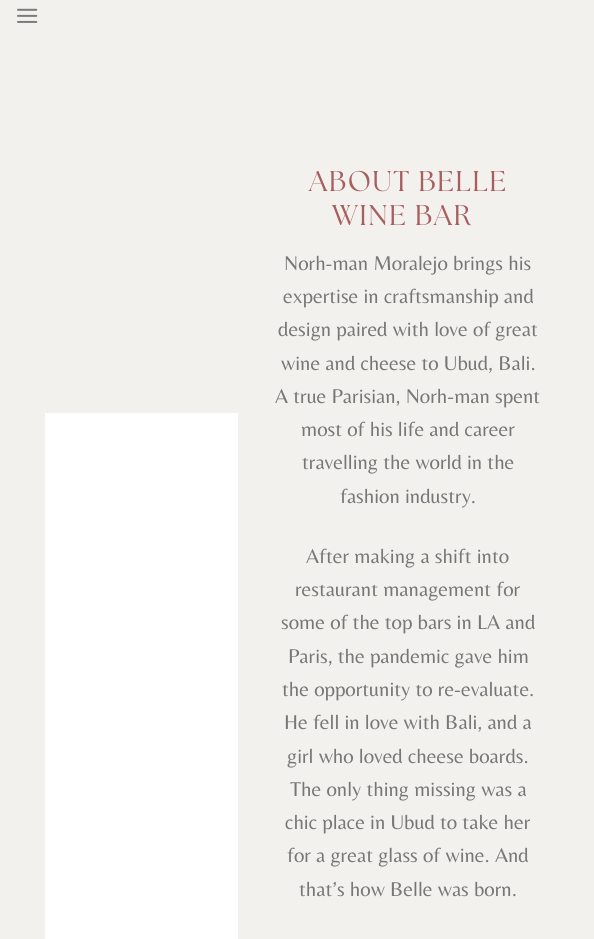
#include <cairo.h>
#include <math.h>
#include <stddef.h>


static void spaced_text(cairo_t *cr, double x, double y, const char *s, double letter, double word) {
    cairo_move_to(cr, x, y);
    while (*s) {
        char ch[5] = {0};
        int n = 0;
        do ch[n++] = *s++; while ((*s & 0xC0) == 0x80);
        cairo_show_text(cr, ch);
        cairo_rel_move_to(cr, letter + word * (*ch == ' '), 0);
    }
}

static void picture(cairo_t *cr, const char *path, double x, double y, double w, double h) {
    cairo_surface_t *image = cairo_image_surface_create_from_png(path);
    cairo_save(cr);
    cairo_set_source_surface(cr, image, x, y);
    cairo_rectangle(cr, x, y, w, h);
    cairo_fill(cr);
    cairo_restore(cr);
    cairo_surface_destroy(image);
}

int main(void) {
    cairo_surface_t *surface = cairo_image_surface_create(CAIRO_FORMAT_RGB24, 594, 939);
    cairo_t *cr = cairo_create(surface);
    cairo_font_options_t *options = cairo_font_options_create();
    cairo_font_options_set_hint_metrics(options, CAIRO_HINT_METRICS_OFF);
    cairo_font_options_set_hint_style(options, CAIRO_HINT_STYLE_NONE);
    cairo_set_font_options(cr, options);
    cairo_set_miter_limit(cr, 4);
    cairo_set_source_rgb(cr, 0.953, 0.945, 0.933);
    cairo_paint(cr);
    picture(cr, "img1.png", 17, 8, 21, 15);
    cairo_set_source_rgb(cr, 1, 1, 1);
    cairo_rectangle(cr, 45, 413, 193, 526);
    cairo_fill(cr);
    cairo_select_font_face(cr, "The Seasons", CAIRO_FONT_SLANT_NORMAL, CAIRO_FONT_WEIGHT_NORMAL);
    cairo_set_font_size(cr, 28.5);
    cairo_set_source_rgb(cr, 0.655, 0.369, 0.369);
    spaced_text(cr, 309, 191, "ABOUT BELLE", 1.5, 0);
    spaced_text(cr, 332, 225, "WINE BAR", 1.5, 0);
    cairo_select_font_face(cr, "Belleza", CAIRO_FONT_SLANT_NORMAL, CAIRO_FONT_WEIGHT_NORMAL);
    cairo_set_font_size(cr, 20.75);
    cairo_set_source_rgb(cr, 0.467, 0.467, 0.467);
    cairo_move_to(cr, 284, 270);
    cairo_show_text(cr, "Norh-man Moralejo brings his");
    cairo_move_to(cr, 283, 303);
    cairo_show_text(cr, "expertise in craftsmanship and");
    cairo_move_to(cr, 278, 336);
    cairo_show_text(cr, "design paired with love of great");
    cairo_move_to(cr, 281, 370);
    cairo_show_text(cr, "wine and cheese to Ubud, Bali.");
    cairo_move_to(cr, 275, 403);
    cairo_show_text(cr, "A true Parisian, Norh-man spent");
    cairo_move_to(cr, 301, 436);
    cairo_show_text(cr, "most of his life and career");
    cairo_move_to(cr, 302, 469);
    cairo_show_text(cr, "travelling the world in the");
    cairo_move_to(cr, 340, 503);
    cairo_show_text(cr, "fashion industry.");
    cairo_move_to(cr, 306, 563);
    cairo_show_text(cr, "After making a shift into");
    cairo_move_to(cr, 295, 596);
    cairo_show_text(cr, "restaurant management for");
    cairo_move_to(cr, 281, 629);
    cairo_show_text(cr, "some of the top bars in LA and");
    cairo_move_to(cr, 288, 663);
    cairo_show_text(cr, "Paris, the pandemic gave him");
    cairo_move_to(cr, 282, 696);
    cairo_show_text(cr, "the opportunity to re-evaluate.");
    cairo_move_to(cr, 284, 729);
    cairo_show_text(cr, "He fell in love with Bali, and a");
    cairo_move_to(cr, 287, 763);
    cairo_show_text(cr, "girl who loved cheese boards.");
    cairo_move_to(cr, 290, 796);
    cairo_show_text(cr, "The only thing missing was a");
    cairo_move_to(cr, 285, 829);
    cairo_show_text(cr, "chic place in Ubud to take her");
    cairo_move_to(cr, 287, 862);
    cairo_show_text(cr, "for a great glass of wine. And");
    cairo_move_to(cr, 299, 896);
    cairo_show_text(cr, "that’s how Belle was born.");
    cairo_surface_write_to_png(surface, "page.png");
    cairo_font_options_destroy(options);
    cairo_destroy(cr);
    cairo_surface_destroy(surface);
    return 0;
}
